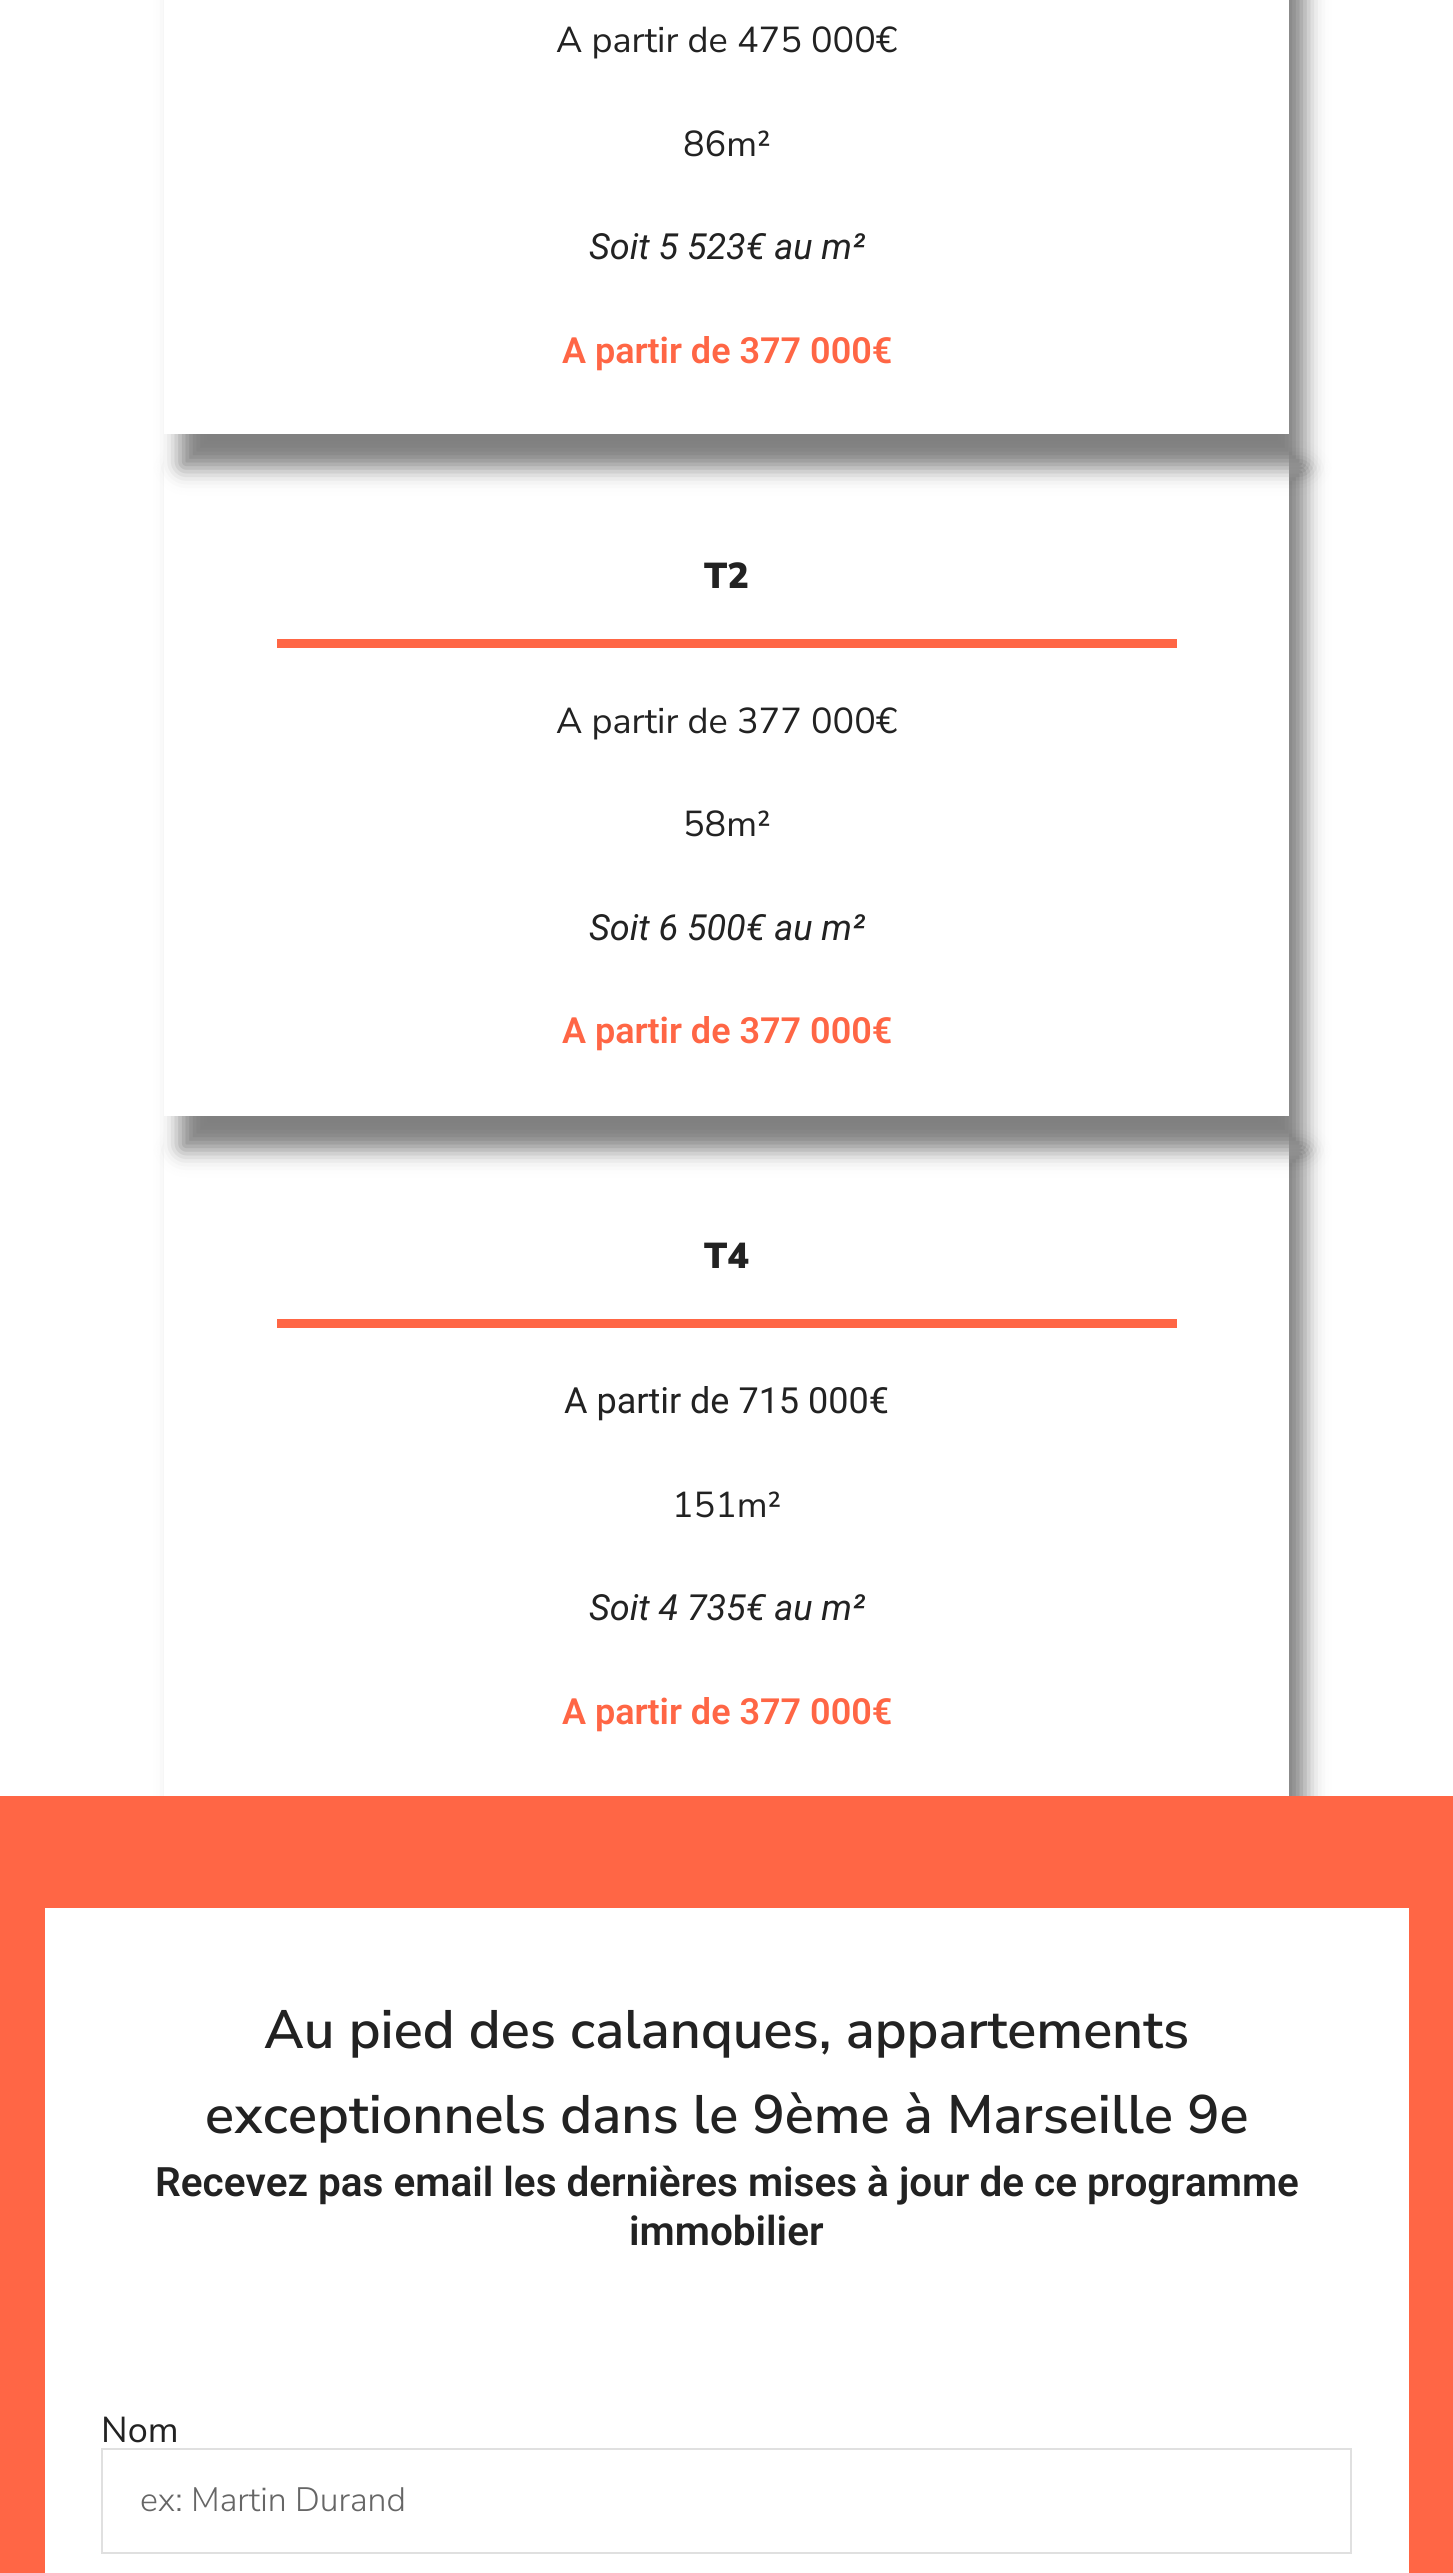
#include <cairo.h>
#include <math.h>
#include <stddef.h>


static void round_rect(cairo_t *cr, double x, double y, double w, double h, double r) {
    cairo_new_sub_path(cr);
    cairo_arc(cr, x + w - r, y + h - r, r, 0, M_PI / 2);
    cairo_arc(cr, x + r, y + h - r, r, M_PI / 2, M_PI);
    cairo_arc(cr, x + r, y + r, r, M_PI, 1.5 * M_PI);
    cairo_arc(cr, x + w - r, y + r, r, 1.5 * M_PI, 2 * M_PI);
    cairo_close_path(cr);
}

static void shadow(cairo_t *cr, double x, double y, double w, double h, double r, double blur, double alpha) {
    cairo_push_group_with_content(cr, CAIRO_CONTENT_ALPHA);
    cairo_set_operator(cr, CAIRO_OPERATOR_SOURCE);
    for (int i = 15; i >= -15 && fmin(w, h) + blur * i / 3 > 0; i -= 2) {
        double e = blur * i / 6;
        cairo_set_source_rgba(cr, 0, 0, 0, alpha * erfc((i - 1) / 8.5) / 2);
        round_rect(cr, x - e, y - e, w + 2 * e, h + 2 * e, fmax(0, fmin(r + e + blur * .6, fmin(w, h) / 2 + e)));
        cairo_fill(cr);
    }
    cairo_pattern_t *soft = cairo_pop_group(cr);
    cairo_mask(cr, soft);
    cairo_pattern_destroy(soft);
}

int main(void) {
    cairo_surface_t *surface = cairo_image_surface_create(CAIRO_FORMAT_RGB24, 1453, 2573);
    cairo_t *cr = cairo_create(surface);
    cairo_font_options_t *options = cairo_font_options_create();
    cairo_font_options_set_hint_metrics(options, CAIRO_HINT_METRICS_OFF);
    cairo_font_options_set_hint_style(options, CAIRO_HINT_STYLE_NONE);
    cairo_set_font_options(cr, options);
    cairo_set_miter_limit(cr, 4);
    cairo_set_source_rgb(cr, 1, 1, 1);
    cairo_paint(cr);
    cairo_save(cr);
    cairo_set_fill_rule(cr, CAIRO_FILL_RULE_EVEN_ODD);
    cairo_new_path(cr);
    cairo_move_to(cr, 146, 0);
    cairo_line_to(cr, 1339, 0);
    cairo_line_to(cr, 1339, 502);
    cairo_line_to(cr, 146, 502);
    cairo_close_path(cr);
    cairo_move_to(cr, 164, -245);
    cairo_line_to(cr, 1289, -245);
    cairo_line_to(cr, 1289, 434);
    cairo_line_to(cr, 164, 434);
    cairo_close_path(cr);
    cairo_clip(cr);
    cairo_set_source_rgb(cr, 0, 0, 0);
    shadow(cr, 180, -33, 1125, 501, 0, 11, 0.5);
    cairo_restore(cr);
    cairo_select_font_face(cr, "Nunito Sans", CAIRO_FONT_SLANT_NORMAL, CAIRO_FONT_WEIGHT_NORMAL);
    cairo_set_font_size(cr, 36);
    cairo_set_source_rgb(cr, 0.133, 0.133, 0.133);
    cairo_move_to(cr, 556, 52);
    cairo_show_text(cr, "A partir de 475 000€");
    cairo_move_to(cr, 683, 156);
    cairo_show_text(cr, "86m²");
    cairo_select_font_face(cr, "Roboto", CAIRO_FONT_SLANT_ITALIC, CAIRO_FONT_WEIGHT_NORMAL);
    cairo_move_to(cr, 589, 259);
    cairo_show_text(cr, "Soit 5 523€ au m²");
    cairo_select_font_face(cr, "Roboto SemiBold", CAIRO_FONT_SLANT_NORMAL, CAIRO_FONT_WEIGHT_NORMAL);
    cairo_set_source_rgb(cr, 1, 0.4, 0.271);
    cairo_move_to(cr, 562, 363);
    cairo_show_text(cr, "A partir de 377 000€");
    cairo_save(cr);
    cairo_set_fill_rule(cr, CAIRO_FILL_RULE_EVEN_ODD);
    cairo_new_path(cr);
    cairo_move_to(cr, 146, 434);
    cairo_line_to(cr, 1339, 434);
    cairo_line_to(cr, 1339, 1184);
    cairo_line_to(cr, 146, 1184);
    cairo_close_path(cr);
    cairo_move_to(cr, 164, 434);
    cairo_line_to(cr, 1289, 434);
    cairo_line_to(cr, 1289, 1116);
    cairo_line_to(cr, 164, 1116);
    cairo_close_path(cr);
    cairo_clip(cr);
    cairo_set_source_rgb(cr, 0, 0, 0);
    shadow(cr, 180, 468, 1125, 682, 0, 11, 0.5);
    cairo_restore(cr);
    cairo_rectangle(cr, 277, 639, 900, 9);
    cairo_fill(cr);
    cairo_select_font_face(cr, "Nunito Sans Black", CAIRO_FONT_SLANT_NORMAL, CAIRO_FONT_WEIGHT_NORMAL);
    cairo_set_source_rgb(cr, 0.133, 0.133, 0.133);
    cairo_move_to(cr, 704, 588);
    cairo_show_text(cr, "T2");
    cairo_select_font_face(cr, "Nunito Sans", CAIRO_FONT_SLANT_NORMAL, CAIRO_FONT_WEIGHT_NORMAL);
    cairo_move_to(cr, 556, 733);
    cairo_show_text(cr, "A partir de 377 000€");
    cairo_move_to(cr, 683, 836);
    cairo_show_text(cr, "58m²");
    cairo_select_font_face(cr, "Roboto", CAIRO_FONT_SLANT_ITALIC, CAIRO_FONT_WEIGHT_NORMAL);
    cairo_move_to(cr, 589, 940);
    cairo_show_text(cr, "Soit 6 500€ au m²");
    cairo_select_font_face(cr, "Roboto SemiBold", CAIRO_FONT_SLANT_NORMAL, CAIRO_FONT_WEIGHT_NORMAL);
    cairo_set_source_rgb(cr, 1, 0.4, 0.271);
    cairo_move_to(cr, 562, 1043);
    cairo_show_text(cr, "A partir de 377 000€");
    cairo_save(cr);
    cairo_set_fill_rule(cr, CAIRO_FILL_RULE_EVEN_ODD);
    cairo_new_path(cr);
    cairo_move_to(cr, 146, 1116);
    cairo_line_to(cr, 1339, 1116);
    cairo_line_to(cr, 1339, 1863);
    cairo_line_to(cr, 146, 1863);
    cairo_close_path(cr);
    cairo_move_to(cr, 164, 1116);
    cairo_line_to(cr, 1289, 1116);
    cairo_line_to(cr, 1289, 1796);
    cairo_line_to(cr, 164, 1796);
    cairo_close_path(cr);
    cairo_clip(cr);
    cairo_set_source_rgb(cr, 0, 0, 0);
    shadow(cr, 180, 1150, 1125, 679, 0, 11, 0.5);
    cairo_restore(cr);
    cairo_rectangle(cr, 277, 1319, 900, 9);
    cairo_fill(cr);
    cairo_select_font_face(cr, "Nunito Sans Black", CAIRO_FONT_SLANT_NORMAL, CAIRO_FONT_WEIGHT_NORMAL);
    cairo_set_source_rgb(cr, 0.133, 0.133, 0.133);
    cairo_move_to(cr, 704, 1268);
    cairo_show_text(cr, "T4");
    cairo_select_font_face(cr, "Roboto", CAIRO_FONT_SLANT_NORMAL, CAIRO_FONT_WEIGHT_NORMAL);
    cairo_move_to(cr, 564, 1413);
    cairo_show_text(cr, "A partir de 715 000€");
    cairo_select_font_face(cr, "Nunito Sans", CAIRO_FONT_SLANT_NORMAL, CAIRO_FONT_WEIGHT_NORMAL);
    cairo_move_to(cr, 672, 1517);
    cairo_show_text(cr, "151m²");
    cairo_select_font_face(cr, "Roboto", CAIRO_FONT_SLANT_ITALIC, CAIRO_FONT_WEIGHT_NORMAL);
    cairo_move_to(cr, 589, 1620);
    cairo_show_text(cr, "Soit 4 735€ au m²");
    cairo_select_font_face(cr, "Roboto SemiBold", CAIRO_FONT_SLANT_NORMAL, CAIRO_FONT_WEIGHT_NORMAL);
    cairo_set_source_rgb(cr, 1, 0.4, 0.271);
    cairo_move_to(cr, 562, 1724);
    cairo_show_text(cr, "A partir de 377 000€");
    cairo_rectangle(cr, 0, 1796, 1453, 777);
    cairo_fill(cr);
    cairo_set_source_rgb(cr, 1, 1, 1);
    cairo_rectangle(cr, 45, 1908, 1364, 665);
    cairo_fill(cr);
    cairo_select_font_face(cr, "Nunito Sans SemiBold", CAIRO_FONT_SLANT_NORMAL, CAIRO_FONT_WEIGHT_NORMAL);
    cairo_set_font_size(cr, 54);
    cairo_set_source_rgb(cr, 0.133, 0.133, 0.133);
    cairo_move_to(cr, 264, 2048);
    cairo_show_text(cr, "Au pied des calanques, appartements");
    cairo_move_to(cr, 205, 2133);
    cairo_show_text(cr, "exceptionnels dans le 9ème à Marseille 9e");
    cairo_select_font_face(cr, "Roboto SemiBold", CAIRO_FONT_SLANT_NORMAL, CAIRO_FONT_WEIGHT_NORMAL);
    cairo_set_font_size(cr, 40.5);
    cairo_move_to(cr, 155, 2196);
    cairo_show_text(cr, "Recevez pas email les dernières mises à jour de ce programme");
    cairo_move_to(cr, 629, 2245);
    cairo_show_text(cr, "immobilier");
    cairo_select_font_face(cr, "Nunito Sans", CAIRO_FONT_SLANT_NORMAL, CAIRO_FONT_WEIGHT_NORMAL);
    cairo_set_font_size(cr, 36);
    cairo_move_to(cr, 101, 2442);
    cairo_show_text(cr, "Nom");
    cairo_rectangle(cr, 102, 2449, 1249, 104);
    cairo_set_source_rgb(cr, 0.878, 0.878, 0.878);
    cairo_stroke(cr);
    cairo_select_font_face(cr, "Nunito Sans Light", CAIRO_FONT_SLANT_NORMAL, CAIRO_FONT_WEIGHT_NORMAL);
    cairo_set_font_size(cr, 33.75);
    cairo_set_source_rgb(cr, 0.4, 0.4, 0.4);
    cairo_move_to(cr, 140, 2511);
    cairo_show_text(cr, "ex: Martin Durand");
    cairo_surface_write_to_png(surface, "page.png");
    cairo_font_options_destroy(options);
    cairo_destroy(cr);
    cairo_surface_destroy(surface);
    return 0;
}
